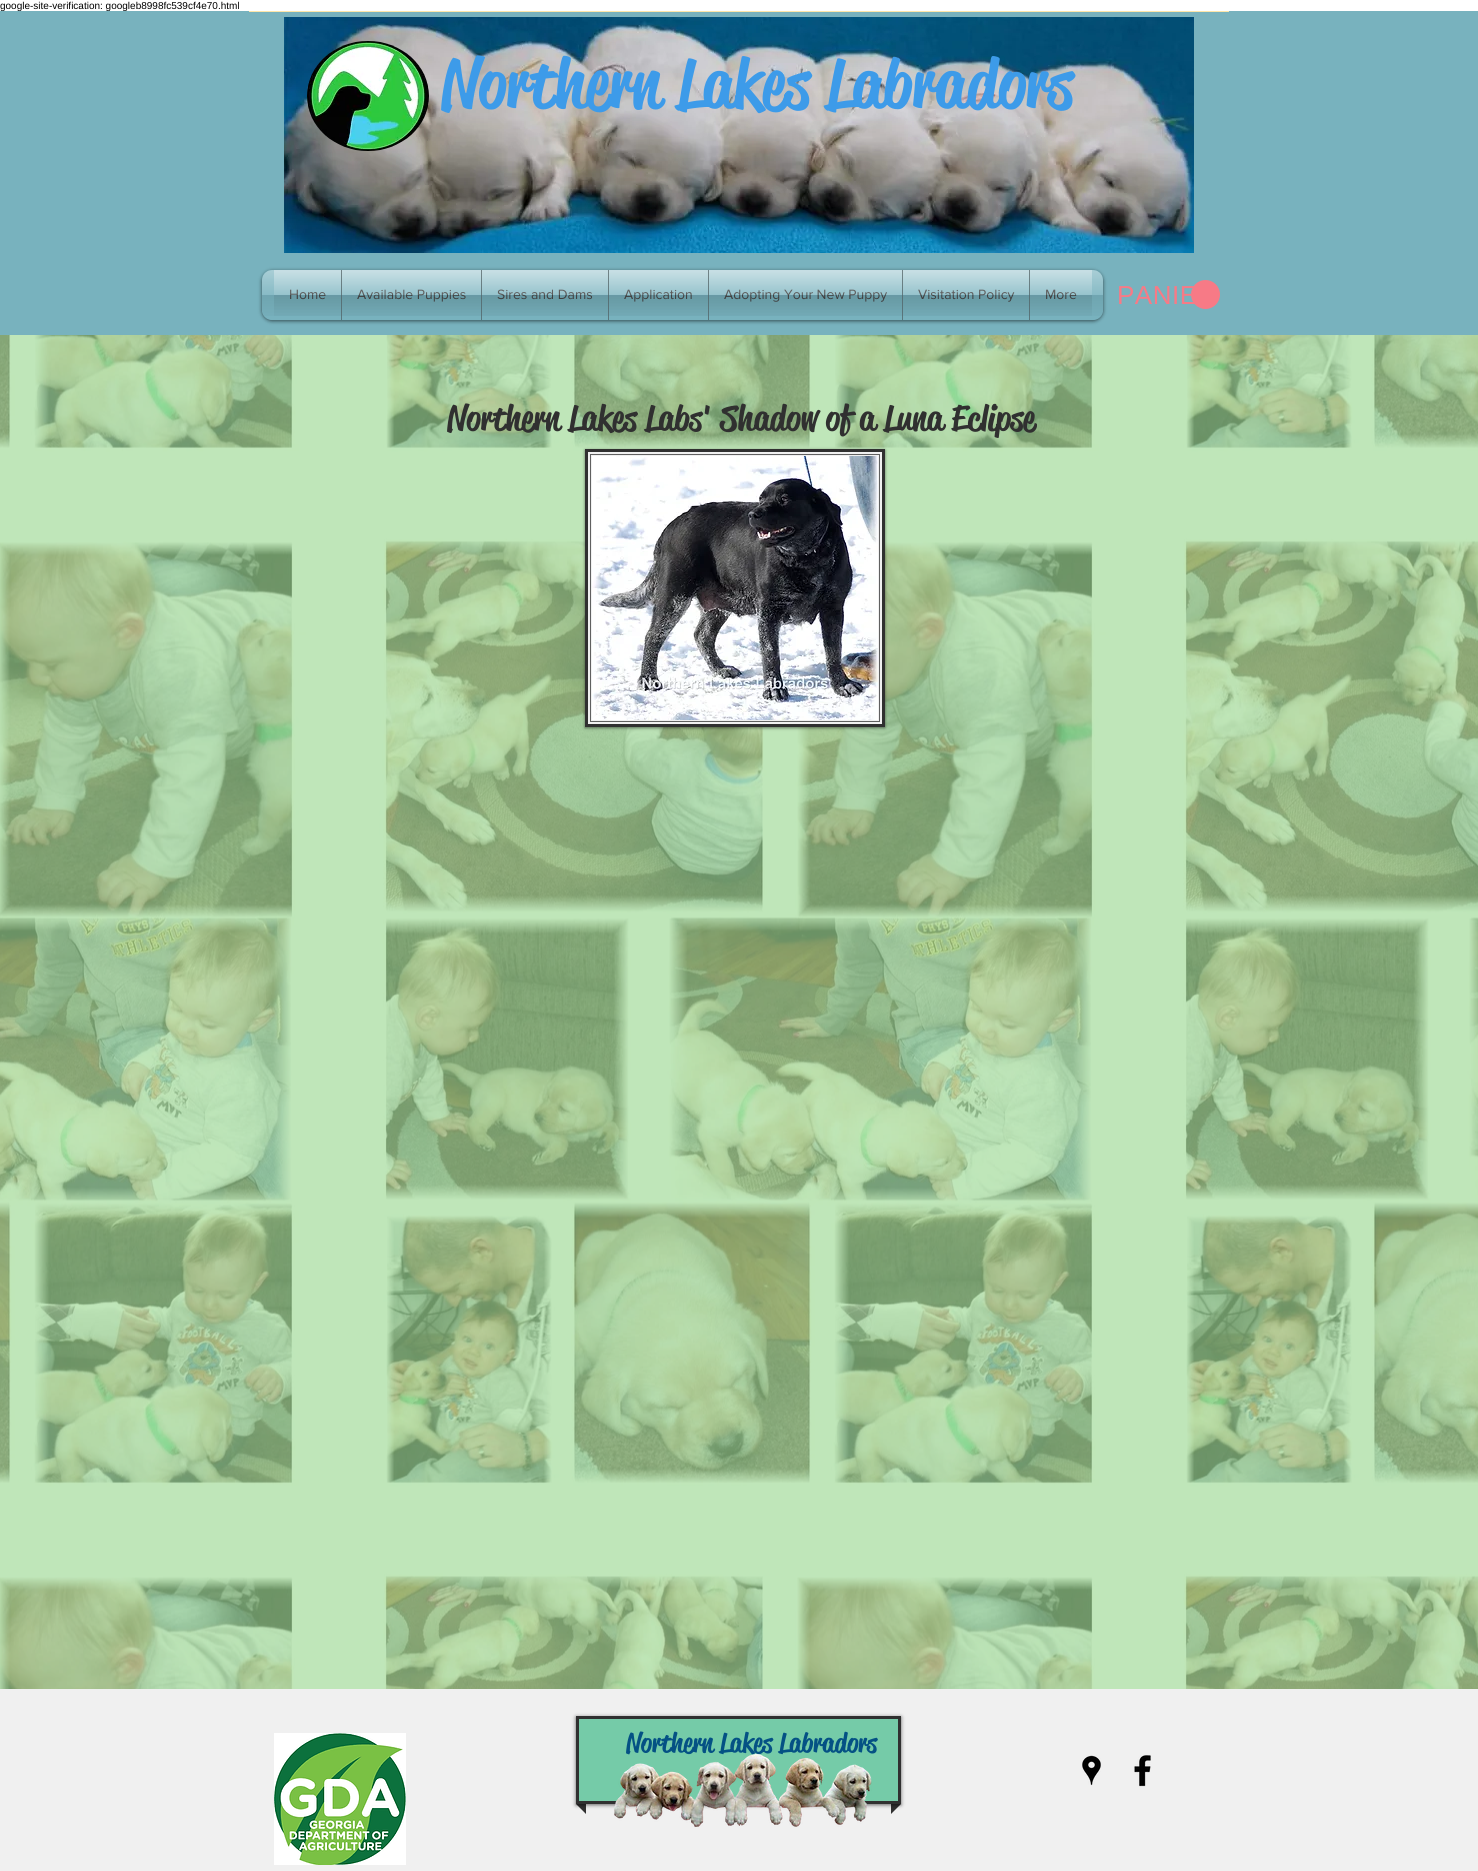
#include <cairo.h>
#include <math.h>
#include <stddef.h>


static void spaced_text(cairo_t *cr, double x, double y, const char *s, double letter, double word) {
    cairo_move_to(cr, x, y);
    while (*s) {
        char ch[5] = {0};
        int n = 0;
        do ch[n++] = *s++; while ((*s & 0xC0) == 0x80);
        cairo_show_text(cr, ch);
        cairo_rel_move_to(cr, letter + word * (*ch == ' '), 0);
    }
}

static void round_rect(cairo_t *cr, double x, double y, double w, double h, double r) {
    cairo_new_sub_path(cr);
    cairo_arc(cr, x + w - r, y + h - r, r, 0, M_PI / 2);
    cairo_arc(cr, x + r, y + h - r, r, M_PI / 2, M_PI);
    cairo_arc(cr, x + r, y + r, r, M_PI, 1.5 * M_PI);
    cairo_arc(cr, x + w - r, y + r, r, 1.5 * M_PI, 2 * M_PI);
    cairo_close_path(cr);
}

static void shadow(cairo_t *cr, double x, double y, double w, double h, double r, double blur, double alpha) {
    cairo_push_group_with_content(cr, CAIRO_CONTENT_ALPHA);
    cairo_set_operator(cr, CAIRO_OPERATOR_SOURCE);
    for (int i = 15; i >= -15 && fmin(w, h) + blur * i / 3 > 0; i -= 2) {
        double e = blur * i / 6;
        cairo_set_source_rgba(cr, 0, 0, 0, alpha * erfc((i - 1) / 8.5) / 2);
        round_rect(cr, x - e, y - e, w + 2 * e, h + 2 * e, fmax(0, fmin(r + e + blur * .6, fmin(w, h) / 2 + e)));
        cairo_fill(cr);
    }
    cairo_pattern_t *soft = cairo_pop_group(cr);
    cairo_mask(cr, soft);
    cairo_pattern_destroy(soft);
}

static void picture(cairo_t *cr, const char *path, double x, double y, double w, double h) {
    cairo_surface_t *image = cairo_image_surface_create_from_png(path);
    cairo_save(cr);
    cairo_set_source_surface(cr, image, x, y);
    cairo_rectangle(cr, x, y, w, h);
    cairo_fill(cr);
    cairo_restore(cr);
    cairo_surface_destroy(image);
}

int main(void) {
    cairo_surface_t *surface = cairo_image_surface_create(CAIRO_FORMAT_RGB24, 1478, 1871);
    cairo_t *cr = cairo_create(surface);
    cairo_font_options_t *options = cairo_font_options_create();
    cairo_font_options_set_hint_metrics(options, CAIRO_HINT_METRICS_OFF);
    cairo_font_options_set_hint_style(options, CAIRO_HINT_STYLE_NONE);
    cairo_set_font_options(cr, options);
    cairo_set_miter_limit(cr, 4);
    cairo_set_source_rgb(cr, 1, 1, 1);
    cairo_paint(cr);
    cairo_select_font_face(cr, "Liberation Sans", CAIRO_FONT_SLANT_NORMAL, CAIRO_FONT_WEIGHT_NORMAL);
    cairo_set_font_size(cr, 10);
    cairo_set_source_rgb(cr, 0, 0, 0);
    cairo_move_to(cr, 0, 9);
    cairo_show_text(cr, "google-site-verification: googleb8998fc539cf4e70.html");
    cairo_set_source_rgb(cr, 0.471, 0.698, 0.745);
    cairo_rectangle(cr, 0, 11, 1478, 324);
    cairo_fill(cr);
    cairo_set_source_rgb(cr, 0.996, 0.902, 0.667);
    cairo_rectangle(cr, 249, 11, 980, 1);
    cairo_fill(cr);
    picture(cr, "img1.png", 284, 17, 910, 236);
    picture(cr, "img2.png", 307, 41, 122, 110);
    cairo_select_font_face(cr, "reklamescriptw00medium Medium", CAIRO_FONT_SLANT_NORMAL, CAIRO_FONT_WEIGHT_NORMAL);
    cairo_set_font_size(cr, 68);
    cairo_set_source_rgb(cr, 0.239, 0.608, 0.914);
    cairo_move_to(cr, 441, 107);
    cairo_show_text(cr, "Northern Lakes Labradors");
    cairo_save(cr);
    cairo_set_fill_rule(cr, CAIRO_FILL_RULE_EVEN_ODD);
    cairo_new_path(cr);
    cairo_move_to(cr, 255, 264);
    cairo_line_to(cr, 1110, 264);
    cairo_line_to(cr, 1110, 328);
    cairo_line_to(cr, 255, 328);
    cairo_close_path(cr);
    cairo_move_to(cr, 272, 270);
    cairo_line_to(cr, 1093, 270);
    cairo_curve_to(cr, 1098.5, 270, 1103, 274.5, 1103, 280);
    cairo_line_to(cr, 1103, 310);
    cairo_curve_to(cr, 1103, 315.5, 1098.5, 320, 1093, 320);
    cairo_line_to(cr, 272, 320);
    cairo_curve_to(cr, 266.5, 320, 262, 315.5, 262, 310);
    cairo_line_to(cr, 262, 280);
    cairo_curve_to(cr, 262, 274.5, 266.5, 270, 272, 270);
    cairo_close_path(cr);
    cairo_clip(cr);
    cairo_set_source_rgb(cr, 0, 0, 0);
    shadow(cr, 262, 271, 841, 50, 10, 2, 0.6);
    cairo_restore(cr);
    picture(cr, "img3.png", 262, 270, 841, 46);
    cairo_select_font_face(cr, "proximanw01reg", CAIRO_FONT_SLANT_NORMAL, CAIRO_FONT_WEIGHT_NORMAL);
    cairo_set_font_size(cr, 14);
    cairo_set_source_rgb(cr, 0.267, 0.267, 0.267);
    cairo_move_to(cr, 289, 299);
    cairo_show_text(cr, "Home");
    picture(cr, "img4.png", 274, 270, 67, 46);
    cairo_set_source_rgba(cr, 0.255, 0.255, 0.255, 0.52);
    cairo_rectangle(cr, 341, 270, 1, 50);
    cairo_fill(cr);
    cairo_set_source_rgb(cr, 0.267, 0.267, 0.267);
    cairo_move_to(cr, 357, 299);
    cairo_show_text(cr, "Available Puppies");
    picture(cr, "img5.png", 342, 270, 139, 46);
    cairo_set_source_rgba(cr, 0.255, 0.255, 0.255, 0.52);
    cairo_rectangle(cr, 481, 270, 1, 50);
    cairo_fill(cr);
    cairo_set_source_rgb(cr, 0.267, 0.267, 0.267);
    cairo_move_to(cr, 497, 299);
    cairo_show_text(cr, "Sires and Dams");
    picture(cr, "img6.png", 482, 270, 126, 46);
    cairo_set_source_rgba(cr, 0.255, 0.255, 0.255, 0.52);
    cairo_rectangle(cr, 608, 270, 1, 50);
    cairo_fill(cr);
    cairo_set_source_rgb(cr, 0.267, 0.267, 0.267);
    cairo_move_to(cr, 624, 299);
    cairo_show_text(cr, "Application");
    picture(cr, "img7.png", 609, 270, 99, 46);
    cairo_set_source_rgba(cr, 0.255, 0.255, 0.255, 0.52);
    cairo_rectangle(cr, 708, 270, 1, 50);
    cairo_fill(cr);
    cairo_set_source_rgb(cr, 0.267, 0.267, 0.267);
    cairo_move_to(cr, 724, 299);
    cairo_show_text(cr, "Adopting Your New Puppy");
    picture(cr, "img8.png", 709, 270, 193, 46);
    cairo_set_source_rgba(cr, 0.255, 0.255, 0.255, 0.52);
    cairo_rectangle(cr, 902, 270, 1, 50);
    cairo_fill(cr);
    cairo_set_source_rgb(cr, 0.267, 0.267, 0.267);
    cairo_move_to(cr, 918, 299);
    cairo_show_text(cr, "Visitation Policy");
    picture(cr, "img9.png", 903, 270, 126, 46);
    cairo_set_source_rgba(cr, 0.255, 0.255, 0.255, 0.52);
    cairo_rectangle(cr, 1029, 270, 1, 50);
    cairo_fill(cr);
    cairo_set_source_rgb(cr, 0.267, 0.267, 0.267);
    cairo_move_to(cr, 1045, 299);
    cairo_show_text(cr, "More");
    picture(cr, "img10.png", 1030, 270, 62, 46);
    cairo_set_source_rgb(cr, 0.965, 0.478, 0.525);
    cairo_arc(cr, 1205.5, 294.5, 14.5, 0, 2 * M_PI);
    cairo_fill(cr);
    cairo_select_font_face(cr, "Liberation Sans", CAIRO_FONT_SLANT_NORMAL, CAIRO_FONT_WEIGHT_NORMAL);
    cairo_set_font_size(cr, 26);
    spaced_text(cr, 1117, 304, "PANIE", 0.5, 0);
    cairo_set_source_rgb(cr, 0.627, 0.851, 0.588);
    cairo_rectangle(cr, 0, 335, 1478, 1354);
    cairo_fill(cr);
    picture(cr, "img11.png", 0, 335, 1478, 1354);
    cairo_select_font_face(cr, "reklamescriptw00medium Medium", CAIRO_FONT_SLANT_NORMAL, CAIRO_FONT_WEIGHT_NORMAL);
    cairo_set_font_size(cr, 35);
    cairo_set_source_rgb(cr, 0.188, 0.188, 0.188);
    cairo_move_to(cr, 447, 430);
    cairo_show_text(cr, "Northern Lakes Labs' Shadow of a Luna Eclipse");
    cairo_set_source_rgb(cr, 0, 0, 0);
    shadow(cr, 585, 450, 300, 278, 0, 1.5, 0.5);
    cairo_set_source_rgb(cr, 0.941, 0.941, 0.941);
    cairo_rectangle(cr, 586.5, 450.5, 297, 275);
    cairo_fill_preserve(cr);
    cairo_set_source_rgb(cr, 0.188, 0.188, 0.188);
    cairo_set_line_width(cr, 3);
    cairo_stroke(cr);
    picture(cr, "img12.png", 592, 456, 286, 264);
    cairo_rectangle(cr, 590.5, 454.5, 289, 267);
    cairo_set_source_rgb(cr, 0.376, 0.376, 0.376);
    cairo_set_line_width(cr, 1);
    cairo_stroke(cr);
    cairo_set_source_rgb(cr, 0.941, 0.941, 0.941);
    cairo_rectangle(cr, 0, 1689, 1478, 182);
    cairo_fill(cr);
    picture(cr, "img13.png", 274, 1733, 132, 132);
    cairo_set_source_rgb(cr, 0.188, 0.188, 0.188);
    cairo_new_path(cr);
    cairo_move_to(cr, 576, 1804);
    cairo_line_to(cr, 586, 1804);
    cairo_line_to(cr, 586, 1814);
    cairo_close_path(cr);
    cairo_fill(cr);
    cairo_new_path(cr);
    cairo_move_to(cr, 891, 1804);
    cairo_line_to(cr, 901, 1804);
    cairo_line_to(cr, 891, 1814);
    cairo_close_path(cr);
    cairo_fill(cr);
    cairo_set_source_rgb(cr, 0, 0, 0);
    shadow(cr, 576, 1717, 325, 88, 0, 2, 0.6);
    cairo_set_source_rgb(cr, 0.459, 0.796, 0.659);
    cairo_rectangle(cr, 577.5, 1717.5, 322, 85);
    cairo_fill_preserve(cr);
    cairo_set_source_rgb(cr, 0.188, 0.188, 0.188);
    cairo_set_line_width(cr, 3);
    cairo_stroke(cr);
    cairo_set_font_size(cr, 27);
    cairo_set_source_rgb(cr, 0.016, 0.318, 0.518);
    cairo_move_to(cr, 626, 1752);
    cairo_show_text(cr, "Northern Lakes Labradors");
    picture(cr, "img14.png", 614, 1753, 258, 74);
    picture(cr, "img15.png", 1082, 1755, 19, 31);
    picture(cr, "img16.png", 1134, 1755, 17, 32);
    cairo_surface_write_to_png(surface, "page.png");
    cairo_font_options_destroy(options);
    cairo_destroy(cr);
    cairo_surface_destroy(surface);
    return 0;
}
